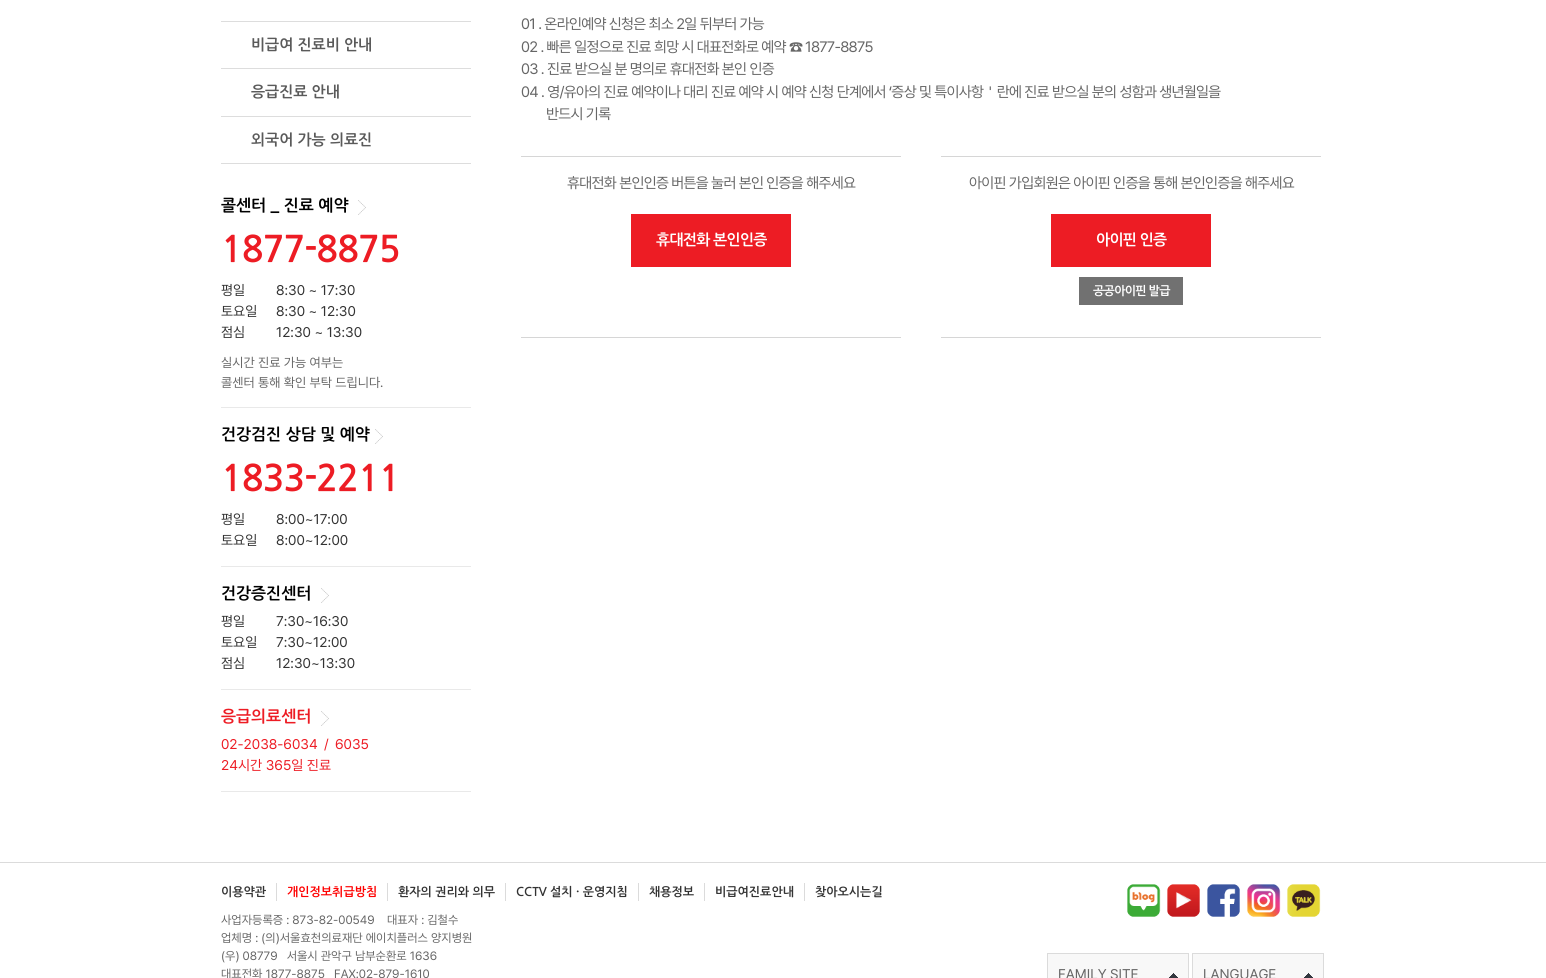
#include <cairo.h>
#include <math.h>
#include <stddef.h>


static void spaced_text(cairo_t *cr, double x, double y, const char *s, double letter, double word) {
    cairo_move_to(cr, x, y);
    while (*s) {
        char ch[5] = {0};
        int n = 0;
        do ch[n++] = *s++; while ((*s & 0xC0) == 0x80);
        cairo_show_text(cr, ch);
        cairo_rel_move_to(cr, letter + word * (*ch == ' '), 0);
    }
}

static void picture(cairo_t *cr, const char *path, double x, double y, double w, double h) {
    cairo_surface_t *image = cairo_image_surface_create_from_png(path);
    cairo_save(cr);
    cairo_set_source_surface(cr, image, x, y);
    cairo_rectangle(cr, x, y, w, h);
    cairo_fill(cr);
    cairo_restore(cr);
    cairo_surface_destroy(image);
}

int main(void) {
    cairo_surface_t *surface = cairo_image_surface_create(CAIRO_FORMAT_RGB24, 1546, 978);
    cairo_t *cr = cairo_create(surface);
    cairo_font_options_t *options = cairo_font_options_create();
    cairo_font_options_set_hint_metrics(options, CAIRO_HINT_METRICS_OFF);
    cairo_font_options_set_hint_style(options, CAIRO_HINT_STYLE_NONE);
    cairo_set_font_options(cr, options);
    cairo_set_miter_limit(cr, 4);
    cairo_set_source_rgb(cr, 1, 1, 1);
    cairo_paint(cr);
    cairo_set_source_rgb(cr, 0.867, 0.867, 0.867);
    cairo_rectangle(cr, 221, 21, 250, 1);
    cairo_fill(cr);
    cairo_rectangle(cr, 221, 68, 250, 1);
    cairo_fill(cr);
    cairo_select_font_face(cr, "NanumGothic", CAIRO_FONT_SLANT_NORMAL, CAIRO_FONT_WEIGHT_BOLD);
    cairo_set_font_size(cr, 15);
    cairo_set_source_rgb(cr, 0.353, 0.353, 0.353);
    cairo_move_to(cr, 251, 50);
    cairo_show_text(cr, "비급여 진료비 안내");
    cairo_set_source_rgb(cr, 0.867, 0.867, 0.867);
    cairo_rectangle(cr, 221, 116, 250, 1);
    cairo_fill(cr);
    cairo_set_source_rgb(cr, 0.353, 0.353, 0.353);
    cairo_move_to(cr, 251, 97);
    cairo_show_text(cr, "응급진료 안내");
    cairo_set_source_rgb(cr, 0.867, 0.867, 0.867);
    cairo_rectangle(cr, 221, 163, 250, 1);
    cairo_fill(cr);
    cairo_set_source_rgb(cr, 0.353, 0.353, 0.353);
    cairo_move_to(cr, 251, 145);
    cairo_show_text(cr, "외국어 가능 의료진");
    cairo_set_source_rgb(cr, 0.914, 0.914, 0.914);
    cairo_rectangle(cr, 221, 407, 250, 1);
    cairo_fill(cr);
    cairo_set_font_size(cr, 16);
    cairo_set_source_rgb(cr, 0, 0, 0);
    cairo_move_to(cr, 221, 211);
    cairo_show_text(cr, "콜센터 _ 진료 예약");
    picture(cr, "img1.png", 358, 200, 8, 15);
    cairo_set_font_size(cr, 36);
    cairo_set_source_rgb(cr, 0.929, 0.11, 0.141);
    spaced_text(cr, 221, 262, "1877-8875", -1, 0);
    cairo_select_font_face(cr, "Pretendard", CAIRO_FONT_SLANT_NORMAL, CAIRO_FONT_WEIGHT_NORMAL);
    cairo_set_font_size(cr, 14);
    cairo_set_source_rgb(cr, 0.2, 0.2, 0.2);
    cairo_move_to(cr, 221, 295);
    cairo_show_text(cr, "평일");
    cairo_move_to(cr, 276, 295);
    cairo_show_text(cr, "8:30 ~ 17:30");
    cairo_move_to(cr, 221, 316);
    cairo_show_text(cr, "토요일");
    cairo_move_to(cr, 276, 316);
    cairo_show_text(cr, "8:30 ~ 12:30");
    cairo_move_to(cr, 221, 337);
    cairo_show_text(cr, "점심");
    cairo_move_to(cr, 276, 337);
    cairo_show_text(cr, "12:30 ~ 13:30");
    cairo_set_font_size(cr, 13);
    cairo_set_source_rgb(cr, 0.4, 0.4, 0.4);
    cairo_move_to(cr, 221, 367);
    cairo_show_text(cr, "실시간 진료 가능 여부는");
    cairo_move_to(cr, 221, 387);
    cairo_show_text(cr, "콜센터 통해 확인 부탁 드립니다.");
    cairo_set_source_rgb(cr, 0.914, 0.914, 0.914);
    cairo_rectangle(cr, 221, 566, 250, 1);
    cairo_fill(cr);
    cairo_select_font_face(cr, "NanumGothic", CAIRO_FONT_SLANT_NORMAL, CAIRO_FONT_WEIGHT_BOLD);
    cairo_set_font_size(cr, 16);
    cairo_set_source_rgb(cr, 0, 0, 0);
    cairo_move_to(cr, 221, 440);
    cairo_show_text(cr, "건강검진 상담 및 예약");
    picture(cr, "img1.png", 375, 429, 8, 15);
    cairo_set_font_size(cr, 36);
    cairo_set_source_rgb(cr, 0.929, 0.11, 0.141);
    spaced_text(cr, 221, 491, "1833-2211", -1, 0);
    cairo_select_font_face(cr, "Pretendard", CAIRO_FONT_SLANT_NORMAL, CAIRO_FONT_WEIGHT_NORMAL);
    cairo_set_font_size(cr, 14);
    cairo_set_source_rgb(cr, 0.2, 0.2, 0.2);
    cairo_move_to(cr, 221, 524);
    cairo_show_text(cr, "평일");
    cairo_move_to(cr, 276, 524);
    cairo_show_text(cr, "8:00~17:00");
    cairo_move_to(cr, 221, 545);
    cairo_show_text(cr, "토요일");
    cairo_move_to(cr, 276, 545);
    cairo_show_text(cr, "8:00~12:00");
    cairo_set_source_rgb(cr, 0.914, 0.914, 0.914);
    cairo_rectangle(cr, 221, 689, 250, 1);
    cairo_fill(cr);
    cairo_select_font_face(cr, "NanumGothic", CAIRO_FONT_SLANT_NORMAL, CAIRO_FONT_WEIGHT_BOLD);
    cairo_set_font_size(cr, 16);
    cairo_set_source_rgb(cr, 0, 0, 0);
    cairo_move_to(cr, 221, 599);
    cairo_show_text(cr, "건강증진센터");
    picture(cr, "img1.png", 321, 588, 8, 15);
    cairo_select_font_face(cr, "Pretendard", CAIRO_FONT_SLANT_NORMAL, CAIRO_FONT_WEIGHT_NORMAL);
    cairo_set_font_size(cr, 14);
    cairo_set_source_rgb(cr, 0.2, 0.2, 0.2);
    cairo_move_to(cr, 221, 626);
    cairo_show_text(cr, "평일");
    cairo_move_to(cr, 276, 626);
    cairo_show_text(cr, "7:30~16:30");
    cairo_move_to(cr, 221, 647);
    cairo_show_text(cr, "토요일");
    cairo_move_to(cr, 276, 647);
    cairo_show_text(cr, "7:30~12:00");
    cairo_move_to(cr, 221, 668);
    cairo_show_text(cr, "점심");
    cairo_move_to(cr, 276, 668);
    cairo_show_text(cr, "12:30~13:30");
    cairo_set_source_rgb(cr, 0.914, 0.914, 0.914);
    cairo_rectangle(cr, 221, 791, 250, 1);
    cairo_fill(cr);
    cairo_select_font_face(cr, "NanumGothic", CAIRO_FONT_SLANT_NORMAL, CAIRO_FONT_WEIGHT_BOLD);
    cairo_set_font_size(cr, 16);
    cairo_set_source_rgb(cr, 0.929, 0.11, 0.141);
    cairo_move_to(cr, 221, 722);
    cairo_show_text(cr, "응급의료센터");
    picture(cr, "img1.png", 321, 711, 8, 15);
    cairo_select_font_face(cr, "Pretendard", CAIRO_FONT_SLANT_NORMAL, CAIRO_FONT_WEIGHT_NORMAL);
    cairo_set_font_size(cr, 14);
    cairo_move_to(cr, 221, 749);
    cairo_show_text(cr, "02-2038-6034");
    cairo_move_to(cr, 324, 749);
    cairo_show_text(cr, "/");
    cairo_move_to(cr, 335, 749);
    cairo_show_text(cr, "6035");
    cairo_move_to(cr, 221, 770);
    cairo_show_text(cr, "24시간 365일 진료");
    cairo_set_font_size(cr, 15);
    cairo_set_source_rgb(cr, 0.4, 0.4, 0.4);
    spaced_text(cr, 521, 29, "01 . 온라인예약 신청은 최소 2일 뒤부터 가능", -0.7, 0);
    spaced_text(cr, 521, 52, "02 . 빠른 일정으로 진료 희망 시 대표전화로 예약", -0.7, 0);
    cairo_select_font_face(cr, "NanumGothic", CAIRO_FONT_SLANT_NORMAL, CAIRO_FONT_WEIGHT_NORMAL);
    spaced_text(cr, 789, 52, "☎", -0.7, 0);
    cairo_select_font_face(cr, "Pretendard", CAIRO_FONT_SLANT_NORMAL, CAIRO_FONT_WEIGHT_NORMAL);
    spaced_text(cr, 805, 52, "1877-8875", -0.7, 0);
    spaced_text(cr, 521, 74, "03 . 진료 받으실 분 명의로 휴대전화 본인 인증", -0.7, 0);
    spaced_text(cr, 521, 97, "04 . 영/유아의 진료 예약이나 대리 진료 예약 시 예약 신청 단계에서 ‘증상 및 특이사항＇란에 진료 받으실 분의 성함과 생년월일을", -0.7, 0);
    spaced_text(cr, 546, 119, "반드시 기록", -0.7, 0);
    cairo_set_source_rgb(cr, 0.839, 0.839, 0.839);
    cairo_rectangle(cr, 521, 156, 380, 1);
    cairo_fill(cr);
    cairo_rectangle(cr, 521, 337, 380, 1);
    cairo_fill(cr);
    cairo_set_source_rgb(cr, 0.4, 0.4, 0.4);
    spaced_text(cr, 567, 188, "휴대전화 본인인증 버튼을 눌러 본인 인증을 해주세요", -0.7, 0);
    cairo_set_source_rgb(cr, 0.929, 0.11, 0.141);
    cairo_rectangle(cr, 631, 214, 160, 53);
    cairo_fill(cr);
    cairo_select_font_face(cr, "NanumGothic", CAIRO_FONT_SLANT_NORMAL, CAIRO_FONT_WEIGHT_BOLD);
    cairo_set_source_rgb(cr, 1, 1, 1);
    spaced_text(cr, 656, 245, "휴대전화 본인인증", -0.7, 0);
    cairo_set_source_rgb(cr, 0.839, 0.839, 0.839);
    cairo_rectangle(cr, 941, 156, 380, 1);
    cairo_fill(cr);
    cairo_rectangle(cr, 941, 337, 380, 1);
    cairo_fill(cr);
    cairo_select_font_face(cr, "Pretendard", CAIRO_FONT_SLANT_NORMAL, CAIRO_FONT_WEIGHT_NORMAL);
    cairo_set_source_rgb(cr, 0.4, 0.4, 0.4);
    spaced_text(cr, 969, 188, "아이핀 가입회원은 아이핀 인증을 통해 본인인증을 해주세요", -0.7, 0);
    cairo_set_source_rgb(cr, 0.929, 0.11, 0.141);
    cairo_rectangle(cr, 1051, 214, 160, 53);
    cairo_fill(cr);
    cairo_select_font_face(cr, "NanumGothic", CAIRO_FONT_SLANT_NORMAL, CAIRO_FONT_WEIGHT_BOLD);
    cairo_set_source_rgb(cr, 1, 1, 1);
    spaced_text(cr, 1096, 245, "아이핀 인증", -0.7, 0);
    cairo_set_source_rgb(cr, 0.443, 0.443, 0.443);
    cairo_rectangle(cr, 1079, 277, 104, 28);
    cairo_fill(cr);
    cairo_set_font_size(cr, 12);
    cairo_set_source_rgb(cr, 1, 1, 1);
    spaced_text(cr, 1093, 295, "공공아이핀 발급", -0.7, 0);
    cairo_set_source_rgb(cr, 0.859, 0.859, 0.859);
    cairo_rectangle(cr, 0, 862, 1546, 1);
    cairo_fill(cr);
    cairo_rectangle(cr, 276, 883, 1, 18);
    cairo_fill(cr);
    cairo_set_source_rgb(cr, 0.2, 0.2, 0.2);
    cairo_move_to(cr, 221, 896);
    cairo_show_text(cr, "이용약관");
    cairo_set_source_rgb(cr, 0.859, 0.859, 0.859);
    cairo_rectangle(cr, 387, 883, 1, 18);
    cairo_fill(cr);
    cairo_set_source_rgb(cr, 1, 0, 0);
    cairo_move_to(cr, 287, 896);
    cairo_show_text(cr, "개인정보취급방침");
    cairo_set_source_rgb(cr, 0.859, 0.859, 0.859);
    cairo_rectangle(cr, 505, 883, 1, 18);
    cairo_fill(cr);
    cairo_set_source_rgb(cr, 0.2, 0.2, 0.2);
    cairo_move_to(cr, 398, 896);
    cairo_show_text(cr, "환자의 권리와 의무");
    cairo_set_source_rgb(cr, 0.859, 0.859, 0.859);
    cairo_rectangle(cr, 638, 883, 1, 18);
    cairo_fill(cr);
    cairo_set_source_rgb(cr, 0.2, 0.2, 0.2);
    cairo_move_to(cr, 516, 896);
    cairo_show_text(cr, "CCTV 설치 · 운영지침");
    cairo_set_source_rgb(cr, 0.859, 0.859, 0.859);
    cairo_rectangle(cr, 704, 883, 1, 18);
    cairo_fill(cr);
    cairo_set_source_rgb(cr, 0.2, 0.2, 0.2);
    cairo_move_to(cr, 649, 896);
    cairo_show_text(cr, "채용정보");
    cairo_set_source_rgb(cr, 0.859, 0.859, 0.859);
    cairo_rectangle(cr, 804, 883, 1, 18);
    cairo_fill(cr);
    cairo_set_source_rgb(cr, 0.2, 0.2, 0.2);
    cairo_move_to(cr, 715, 896);
    cairo_show_text(cr, "비급여진료안내");
    cairo_move_to(cr, 815, 896);
    cairo_show_text(cr, "찾아오시는길");
    cairo_select_font_face(cr, "Pretendard", CAIRO_FONT_SLANT_NORMAL, CAIRO_FONT_WEIGHT_NORMAL);
    cairo_set_source_rgb(cr, 0.4, 0.4, 0.4);
    cairo_move_to(cr, 221, 924);
    cairo_show_text(cr, "사업자등록증 : 873-82-00549");
    cairo_move_to(cr, 387, 924);
    cairo_show_text(cr, "대표자 : 김철수");
    cairo_move_to(cr, 221, 942);
    cairo_show_text(cr, "업체명 : (의)서울효천의료재단 에이치플러스 양지병원");
    cairo_move_to(cr, 221, 960);
    cairo_show_text(cr, "(우) 08779   서울시 관악구 남부순환로 1636");
    cairo_move_to(cr, 221, 978);
    cairo_show_text(cr, "대표전화 1877-8875");
    cairo_move_to(cr, 334, 978);
    cairo_show_text(cr, "FAX:02-879-1610");
    picture(cr, "img2.png", 1127, 884, 34, 33);
    picture(cr, "img3.png", 1167, 884, 33, 33);
    picture(cr, "img4.png", 1207, 884, 33, 33);
    picture(cr, "img5.png", 1247, 884, 34, 33);
    picture(cr, "img6.png", 1287, 884, 34, 33);
    cairo_set_source_rgb(cr, 0.969, 0.969, 0.969);
    cairo_rectangle(cr, 1047.5, 953.5, 141, 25);
    cairo_fill_preserve(cr);
    cairo_set_source_rgb(cr, 0.859, 0.859, 0.859);
    cairo_set_line_width(cr, 1);
    cairo_stroke(cr);
    cairo_set_font_size(cr, 14);
    cairo_set_source_rgb(cr, 0.4, 0.4, 0.4);
    cairo_move_to(cr, 1058, 979);
    cairo_show_text(cr, "FAMILY SITE");
    picture(cr, "img7.png", 1169, 973, 9, 5);
    cairo_set_source_rgb(cr, 0.969, 0.969, 0.969);
    cairo_rectangle(cr, 1192.5, 953.5, 131, 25);
    cairo_fill_preserve(cr);
    cairo_set_source_rgb(cr, 0.859, 0.859, 0.859);
    cairo_stroke(cr);
    cairo_set_source_rgb(cr, 0.4, 0.4, 0.4);
    cairo_move_to(cr, 1203, 979);
    cairo_show_text(cr, "LANGUAGE");
    picture(cr, "img7.png", 1304, 973, 9, 5);
    cairo_surface_write_to_png(surface, "page.png");
    cairo_font_options_destroy(options);
    cairo_destroy(cr);
    cairo_surface_destroy(surface);
    return 0;
}
